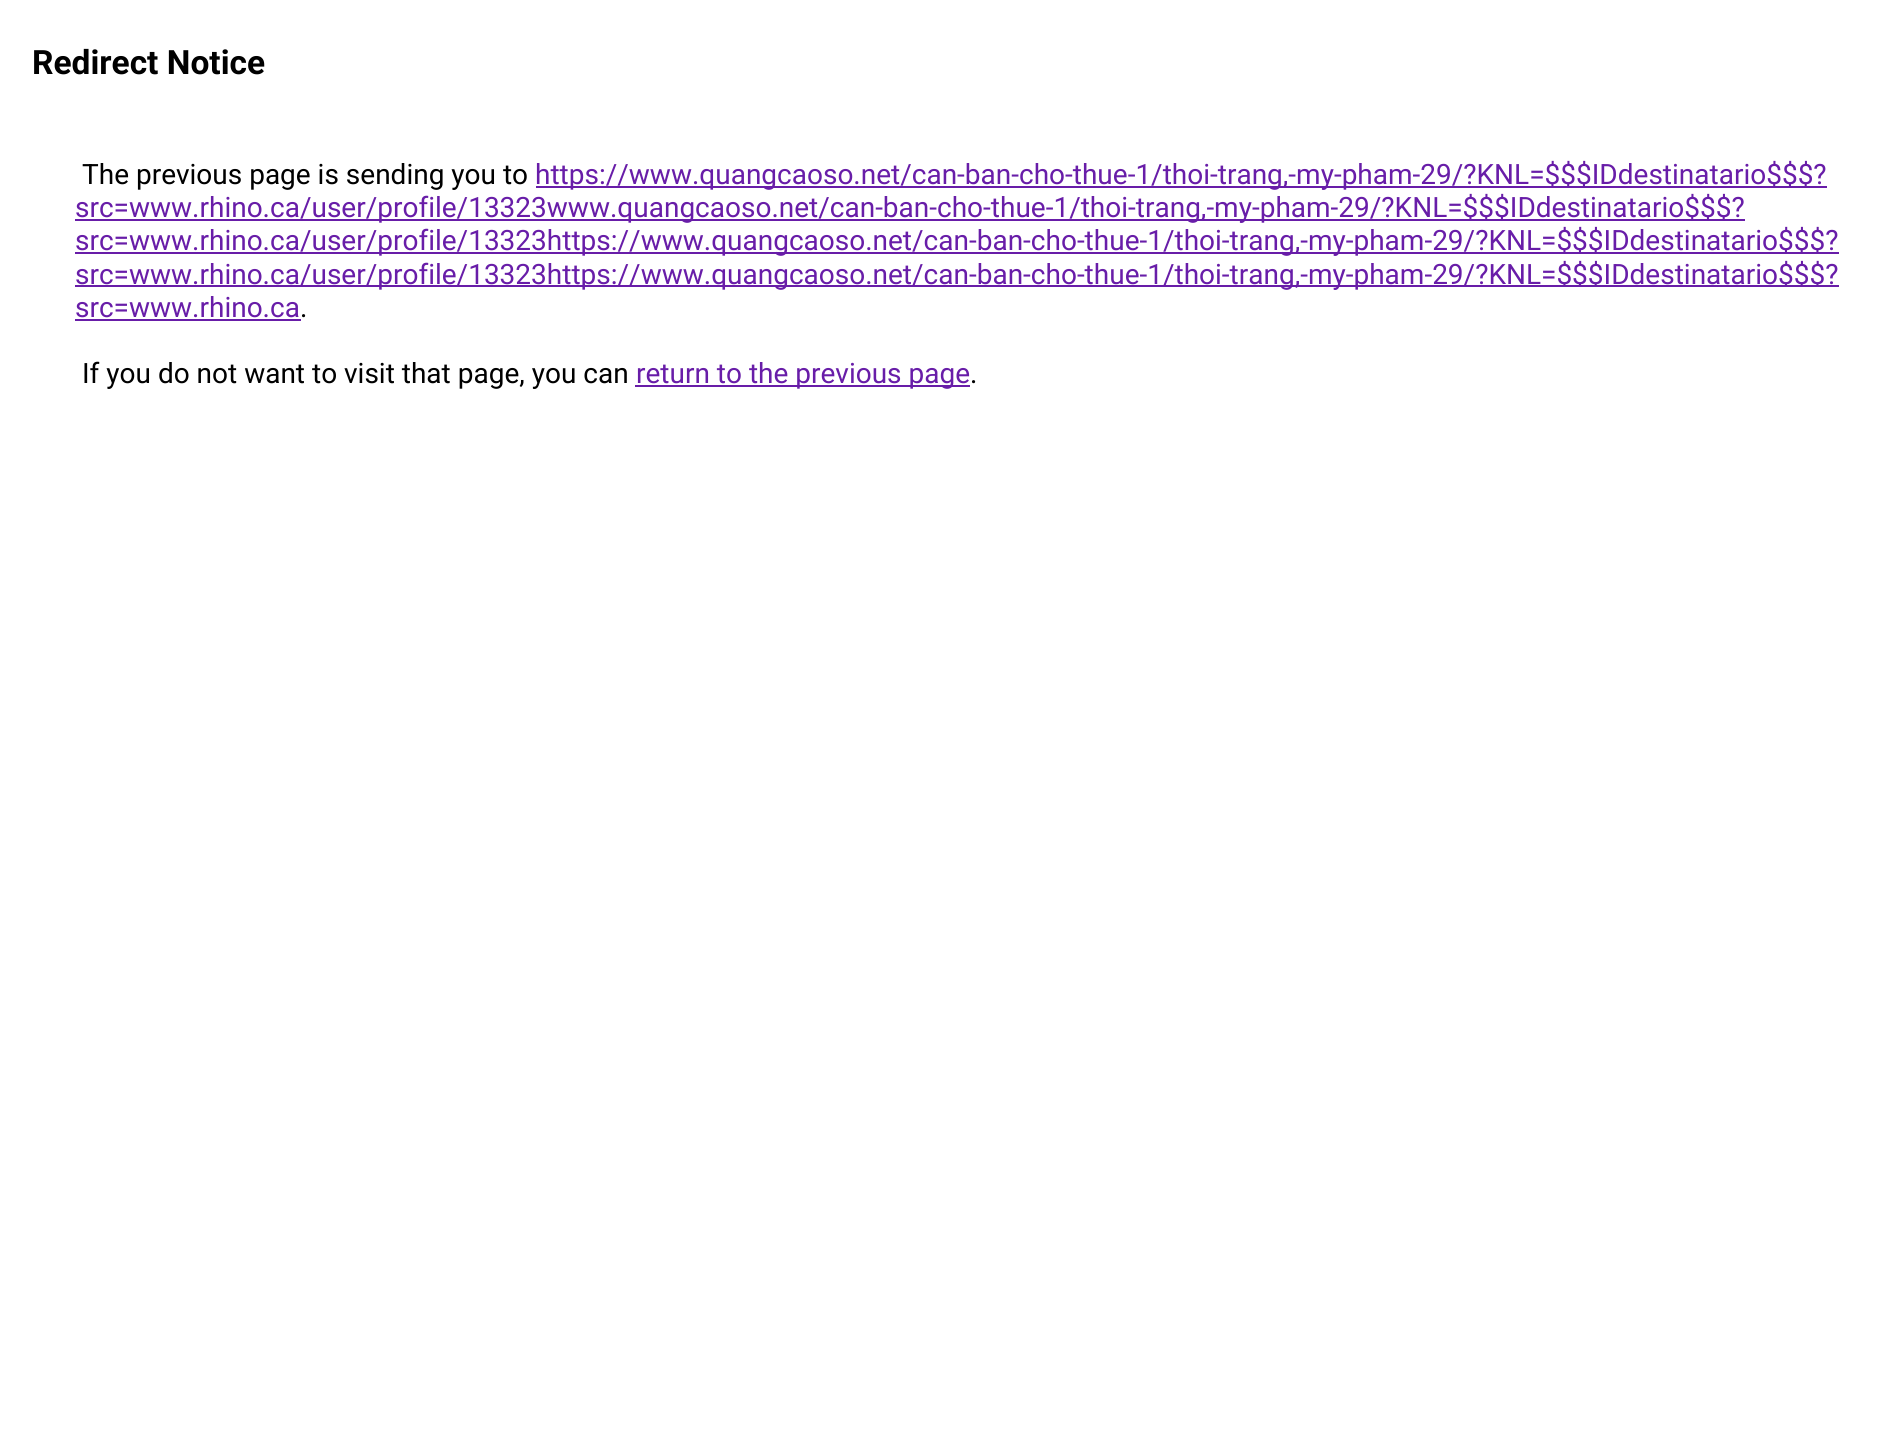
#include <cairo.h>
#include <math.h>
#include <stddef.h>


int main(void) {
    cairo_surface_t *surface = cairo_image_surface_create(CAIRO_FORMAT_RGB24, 1884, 1454);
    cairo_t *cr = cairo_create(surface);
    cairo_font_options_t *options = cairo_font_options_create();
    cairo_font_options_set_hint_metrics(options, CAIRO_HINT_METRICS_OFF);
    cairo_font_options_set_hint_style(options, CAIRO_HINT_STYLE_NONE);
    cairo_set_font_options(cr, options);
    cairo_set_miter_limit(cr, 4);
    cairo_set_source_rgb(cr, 1, 1, 1);
    cairo_paint(cr);
    cairo_select_font_face(cr, "Roboto", CAIRO_FONT_SLANT_NORMAL, CAIRO_FONT_WEIGHT_BOLD);
    cairo_set_font_size(cr, 33.5);
    cairo_set_source_rgb(cr, 0, 0, 0);
    cairo_move_to(cr, 32, 74);
    cairo_show_text(cr, "Redirect Notice");
    cairo_select_font_face(cr, "Roboto", CAIRO_FONT_SLANT_NORMAL, CAIRO_FONT_WEIGHT_NORMAL);
    cairo_set_font_size(cr, 28);
    cairo_move_to(cr, 82, 184);
    cairo_show_text(cr, "The previous page is sending you to");
    cairo_set_source_rgb(cr, 0.408, 0.114, 0.659);
    cairo_rectangle(cr, 536, 186, 1291, 2);
    cairo_fill(cr);
    cairo_move_to(cr, 535, 184);
    cairo_show_text(cr, "https://www.quangcaoso.net/can-ban-cho-thue-1/thoi-trang,-my-pham-29/?KNL=$$$IDdestinatario$$$?");
    cairo_rectangle(cr, 75, 219, 1670, 2);
    cairo_fill(cr);
    cairo_move_to(cr, 75, 217);
    cairo_show_text(cr, "src=www.rhino.ca/user/profile/13323www.quangcaoso.net/can-ban-cho-thue-1/thoi-trang,-my-pham-29/?KNL=$$$IDdestinatario$$$?");
    cairo_rectangle(cr, 75, 252, 1764, 2);
    cairo_fill(cr);
    cairo_move_to(cr, 75, 250);
    cairo_show_text(cr, "src=www.rhino.ca/user/profile/13323https://www.quangcaoso.net/can-ban-cho-thue-1/thoi-trang,-my-pham-29/?KNL=$$$IDdestinatario$$$?");
    cairo_rectangle(cr, 75, 285, 1764, 2);
    cairo_fill(cr);
    cairo_move_to(cr, 75, 284);
    cairo_show_text(cr, "src=www.rhino.ca/user/profile/13323https://www.quangcaoso.net/can-ban-cho-thue-1/thoi-trang,-my-pham-29/?KNL=$$$IDdestinatario$$$?");
    cairo_move_to(cr, 75, 317);
    cairo_show_text(cr, "src=www.rhino.ca");
    cairo_rectangle(cr, 75, 319, 226, 2);
    cairo_fill(cr);
    cairo_set_source_rgb(cr, 0, 0, 0);
    cairo_move_to(cr, 300, 317);
    cairo_show_text(cr, ".");
    cairo_move_to(cr, 82, 383);
    cairo_show_text(cr, "If you do not want to visit that page, you can");
    cairo_set_source_rgb(cr, 0.408, 0.114, 0.659);
    cairo_rectangle(cr, 635, 385, 335, 2);
    cairo_fill(cr);
    cairo_move_to(cr, 636, 383);
    cairo_show_text(cr, "return to the previous page");
    cairo_set_source_rgb(cr, 0, 0, 0);
    cairo_move_to(cr, 970, 383);
    cairo_show_text(cr, ".");
    cairo_surface_write_to_png(surface, "page.png");
    cairo_font_options_destroy(options);
    cairo_destroy(cr);
    cairo_surface_destroy(surface);
    return 0;
}
